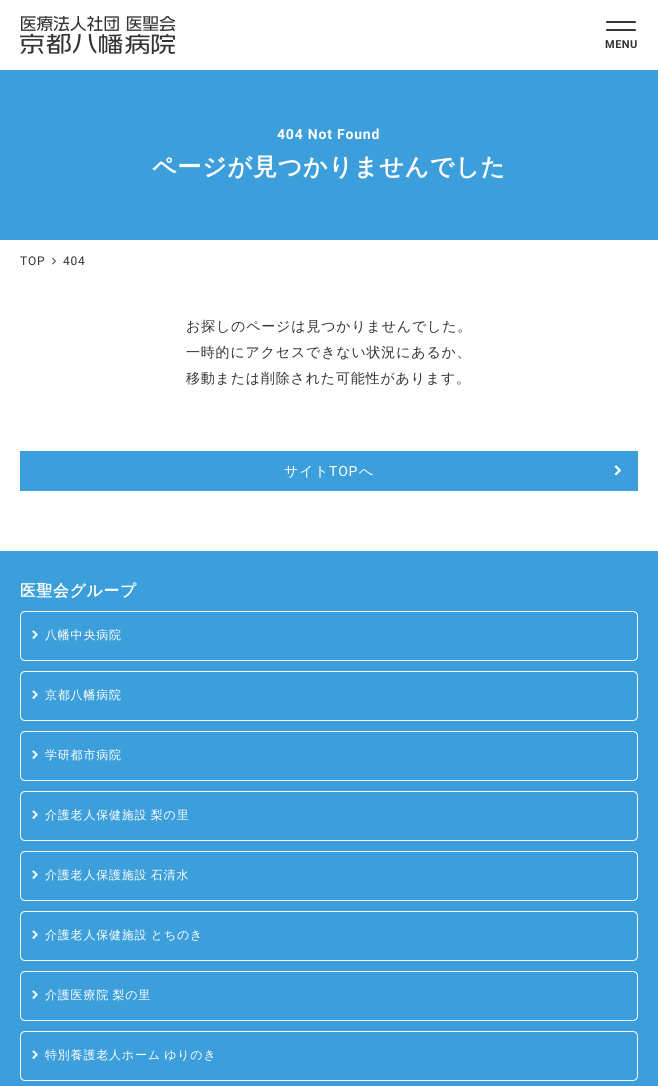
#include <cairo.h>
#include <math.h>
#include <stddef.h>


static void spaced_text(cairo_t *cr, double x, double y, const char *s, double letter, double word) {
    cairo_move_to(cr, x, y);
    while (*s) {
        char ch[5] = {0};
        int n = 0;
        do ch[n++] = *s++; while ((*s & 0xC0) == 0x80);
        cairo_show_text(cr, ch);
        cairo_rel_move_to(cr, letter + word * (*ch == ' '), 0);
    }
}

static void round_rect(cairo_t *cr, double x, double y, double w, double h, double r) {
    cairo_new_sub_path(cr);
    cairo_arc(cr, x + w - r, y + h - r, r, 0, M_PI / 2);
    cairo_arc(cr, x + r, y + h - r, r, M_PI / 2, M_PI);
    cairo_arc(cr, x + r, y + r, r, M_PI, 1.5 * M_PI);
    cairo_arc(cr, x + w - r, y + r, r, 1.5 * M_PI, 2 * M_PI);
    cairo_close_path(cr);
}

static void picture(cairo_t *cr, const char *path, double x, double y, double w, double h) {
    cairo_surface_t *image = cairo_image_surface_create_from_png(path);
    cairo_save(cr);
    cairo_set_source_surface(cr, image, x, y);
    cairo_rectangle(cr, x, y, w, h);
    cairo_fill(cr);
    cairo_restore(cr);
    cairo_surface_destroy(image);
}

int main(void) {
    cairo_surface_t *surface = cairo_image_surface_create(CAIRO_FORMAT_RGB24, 658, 1086);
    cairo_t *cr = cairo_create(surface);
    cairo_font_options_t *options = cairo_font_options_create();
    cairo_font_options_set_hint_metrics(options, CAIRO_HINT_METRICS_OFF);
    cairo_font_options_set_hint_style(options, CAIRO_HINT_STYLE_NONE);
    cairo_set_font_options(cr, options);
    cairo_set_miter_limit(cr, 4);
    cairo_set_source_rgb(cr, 1, 1, 1);
    cairo_paint(cr);
    picture(cr, "img1.png", 20, 16, 155, 38);
    cairo_set_source_rgb(cr, 0.2, 0.2, 0.2);
    round_rect(cr, 606, 21, 30, 2, 1);
    cairo_fill(cr);
    round_rect(cr, 606, 29, 30, 2, 1);
    cairo_fill(cr);
    cairo_select_font_face(cr, "Roboto", CAIRO_FONT_SLANT_NORMAL, CAIRO_FONT_WEIGHT_BOLD);
    cairo_set_font_size(cr, 11);
    spaced_text(cr, 605, 48, "MENU", 0.5, 0);
    cairo_set_source_rgb(cr, 0.235, 0.624, 0.859);
    cairo_rectangle(cr, 0, 70, 658, 170);
    cairo_fill(cr);
    cairo_set_font_size(cr, 14);
    cairo_set_source_rgb(cr, 1, 1, 1);
    spaced_text(cr, 277, 139, "404 Not Found", 0.8, 0);
    cairo_select_font_face(cr, "WenQuanYi Zen Hei", CAIRO_FONT_SLANT_NORMAL, CAIRO_FONT_WEIGHT_BOLD);
    cairo_set_font_size(cr, 24);
    spaced_text(cr, 152, 175, "ページが見つかりませんでした", 0.8, 0);
    cairo_select_font_face(cr, "Roboto", CAIRO_FONT_SLANT_NORMAL, CAIRO_FONT_WEIGHT_NORMAL);
    cairo_set_font_size(cr, 12);
    cairo_set_source_rgb(cr, 0.2, 0.2, 0.2);
    spaced_text(cr, 20, 265, "TOP", 0.8, 0);
    picture(cr, "img2.png", 52, 257, 4, 8);
    spaced_text(cr, 63, 265, "404", 0.8, 0);
    cairo_select_font_face(cr, "WenQuanYi Zen Hei Medium", CAIRO_FONT_SLANT_NORMAL, CAIRO_FONT_WEIGHT_NORMAL);
    cairo_set_font_size(cr, 14);
    spaced_text(cr, 186, 331, "お探しのページは見つかりませんでした。", 0.8, 0);
    spaced_text(cr, 186, 357, "一時的にアクセスできない状況にあるか、", 0.8, 0);
    spaced_text(cr, 186, 383, "移動または削除された可能性があります。", 0.8, 0);
    cairo_set_source_rgb(cr, 0.235, 0.624, 0.859);
    cairo_rectangle(cr, 20, 451, 618, 40);
    cairo_fill(cr);
    cairo_set_source_rgb(cr, 1, 1, 1);
    spaced_text(cr, 284, 476, "サイト", 0.8, 0);
    cairo_select_font_face(cr, "Roboto", CAIRO_FONT_SLANT_NORMAL, CAIRO_FONT_WEIGHT_NORMAL);
    spaced_text(cr, 329, 476, "TOP", 0.8, 0);
    cairo_select_font_face(cr, "WenQuanYi Zen Hei Medium", CAIRO_FONT_SLANT_NORMAL, CAIRO_FONT_WEIGHT_NORMAL);
    spaced_text(cr, 359, 476, "へ", 0.8, 0);
    picture(cr, "img3.png", 614, 465, 8, 11);
    cairo_set_source_rgb(cr, 0.235, 0.624, 0.859);
    cairo_rectangle(cr, 0, 551, 658, 535);
    cairo_fill(cr);
    cairo_select_font_face(cr, "WenQuanYi Zen Hei", CAIRO_FONT_SLANT_NORMAL, CAIRO_FONT_WEIGHT_BOLD);
    cairo_set_font_size(cr, 15.75);
    cairo_set_source_rgb(cr, 1, 1, 1);
    spaced_text(cr, 20, 596, "医聖会グループ", 0.8, 0);
    round_rect(cr, 20.5, 611.5, 617, 49, 4.5);
    cairo_set_line_width(cr, 1);
    cairo_stroke(cr);
    picture(cr, "img4.png", 32, 630, 6, 9);
    cairo_select_font_face(cr, "WenQuanYi Zen Hei Medium", CAIRO_FONT_SLANT_NORMAL, CAIRO_FONT_WEIGHT_NORMAL);
    cairo_set_font_size(cr, 12);
    spaced_text(cr, 45, 639, "八幡中央病院", 0.8, 0);
    round_rect(cr, 20.5, 671.5, 617, 49, 4.5);
    cairo_stroke(cr);
    picture(cr, "img4.png", 32, 690, 6, 9);
    spaced_text(cr, 45, 699, "京都八幡病院", 0.8, 0);
    round_rect(cr, 20.5, 731.5, 617, 49, 4.5);
    cairo_stroke(cr);
    picture(cr, "img4.png", 32, 750, 6, 9);
    spaced_text(cr, 45, 759, "学研都市病院", 0.8, 0);
    round_rect(cr, 20.5, 791.5, 617, 49, 4.5);
    cairo_stroke(cr);
    picture(cr, "img4.png", 32, 810, 6, 9);
    spaced_text(cr, 45, 819, "介護老人保健施設 梨の里", 0.8, -1);
    round_rect(cr, 20.5, 851.5, 617, 49, 4.5);
    cairo_stroke(cr);
    picture(cr, "img4.png", 32, 870, 6, 9);
    spaced_text(cr, 45, 879, "介護老人保護施設 石清水", 0.8, -1);
    round_rect(cr, 20.5, 911.5, 617, 49, 4.5);
    cairo_stroke(cr);
    picture(cr, "img4.png", 32, 930, 6, 9);
    spaced_text(cr, 45, 939, "介護老人保健施設 とちのき", 0.8, -1);
    round_rect(cr, 20.5, 971.5, 617, 49, 4.5);
    cairo_stroke(cr);
    picture(cr, "img4.png", 32, 990, 6, 9);
    spaced_text(cr, 45, 999, "介護医療院 梨の里", 0.8, -1);
    round_rect(cr, 20.5, 1031.5, 617, 49, 4.5);
    cairo_stroke(cr);
    picture(cr, "img4.png", 32, 1050, 6, 9);
    spaced_text(cr, 45, 1059, "特別養護老人ホーム ゆりのき", 0.8, -1);
    cairo_surface_write_to_png(surface, "page.png");
    cairo_font_options_destroy(options);
    cairo_destroy(cr);
    cairo_surface_destroy(surface);
    return 0;
}
